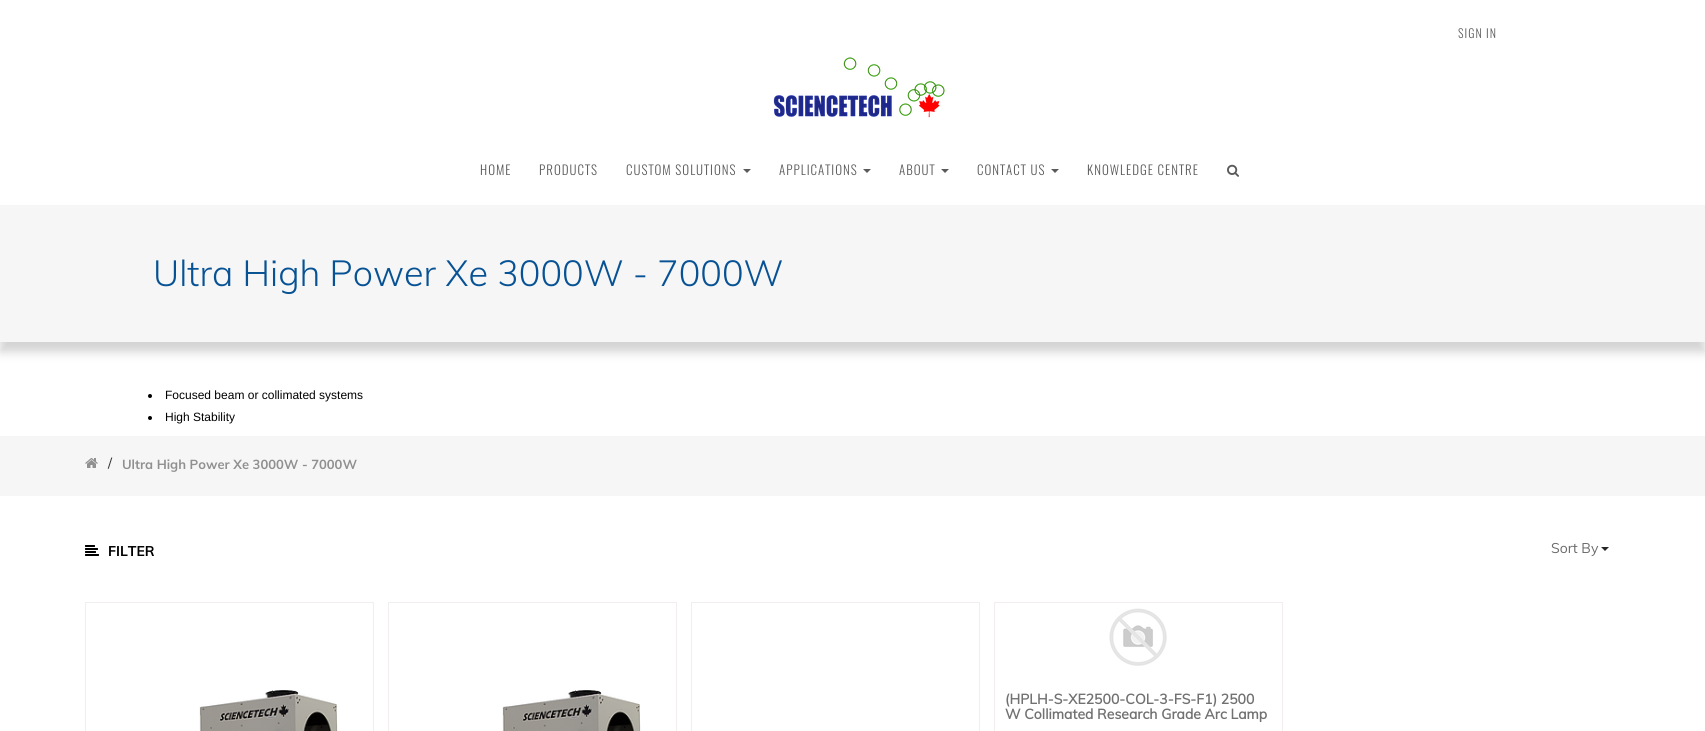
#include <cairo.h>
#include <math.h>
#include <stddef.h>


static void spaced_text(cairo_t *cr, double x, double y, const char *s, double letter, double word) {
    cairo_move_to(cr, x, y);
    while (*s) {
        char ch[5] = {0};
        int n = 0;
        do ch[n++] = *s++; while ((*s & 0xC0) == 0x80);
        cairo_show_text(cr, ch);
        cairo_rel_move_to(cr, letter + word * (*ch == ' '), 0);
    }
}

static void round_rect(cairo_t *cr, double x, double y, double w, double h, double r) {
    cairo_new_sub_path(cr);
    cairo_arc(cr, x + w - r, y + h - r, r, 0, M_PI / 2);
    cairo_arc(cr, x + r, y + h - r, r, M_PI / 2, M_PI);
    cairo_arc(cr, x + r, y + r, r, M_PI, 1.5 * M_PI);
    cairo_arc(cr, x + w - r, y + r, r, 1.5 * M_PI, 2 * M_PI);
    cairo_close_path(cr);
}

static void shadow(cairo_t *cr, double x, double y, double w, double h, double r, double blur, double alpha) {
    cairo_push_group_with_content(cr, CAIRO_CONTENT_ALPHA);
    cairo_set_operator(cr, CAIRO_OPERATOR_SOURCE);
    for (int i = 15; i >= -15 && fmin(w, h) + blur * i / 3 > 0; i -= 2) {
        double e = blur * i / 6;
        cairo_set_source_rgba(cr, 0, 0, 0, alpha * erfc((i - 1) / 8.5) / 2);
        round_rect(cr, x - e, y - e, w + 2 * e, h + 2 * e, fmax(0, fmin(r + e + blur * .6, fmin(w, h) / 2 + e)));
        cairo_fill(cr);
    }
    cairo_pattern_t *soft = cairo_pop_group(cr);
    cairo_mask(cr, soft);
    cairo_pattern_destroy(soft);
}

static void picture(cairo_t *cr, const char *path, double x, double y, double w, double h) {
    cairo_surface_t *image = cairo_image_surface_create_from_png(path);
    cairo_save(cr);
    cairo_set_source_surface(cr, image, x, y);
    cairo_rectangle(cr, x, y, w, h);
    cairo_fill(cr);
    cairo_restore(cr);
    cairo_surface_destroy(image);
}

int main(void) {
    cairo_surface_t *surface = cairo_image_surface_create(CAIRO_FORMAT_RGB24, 1705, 731);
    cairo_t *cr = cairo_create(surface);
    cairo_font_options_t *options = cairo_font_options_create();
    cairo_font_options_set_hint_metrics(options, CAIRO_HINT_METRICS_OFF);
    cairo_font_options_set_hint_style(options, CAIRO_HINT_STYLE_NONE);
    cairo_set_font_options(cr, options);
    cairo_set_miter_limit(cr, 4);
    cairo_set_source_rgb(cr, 1, 1, 1);
    cairo_paint(cr);
    cairo_select_font_face(cr, "Oswald Light", CAIRO_FONT_SLANT_NORMAL, CAIRO_FONT_WEIGHT_NORMAL);
    cairo_set_font_size(cr, 12);
    cairo_set_source_rgb(cr, 0.353, 0.353, 0.353);
    spaced_text(cr, 1458, 38, "SIGN IN", 1, 0);
    picture(cr, "img1.png", 773, 57, 172, 61);
    cairo_set_font_size(cr, 13);
    spaced_text(cr, 480, 175, "HOME", 1, 0);
    spaced_text(cr, 539, 175, "PRODUCTS", 1, 0);
    spaced_text(cr, 626, 175, "CUSTOM SOLUTIONS", 1, 0);
    cairo_new_path(cr);
    cairo_move_to(cr, 743, 169);
    cairo_line_to(cr, 751, 169);
    cairo_line_to(cr, 747, 173);
    cairo_close_path(cr);
    cairo_fill(cr);
    spaced_text(cr, 779, 175, "APPLICATIONS", 1, 0);
    cairo_new_path(cr);
    cairo_move_to(cr, 863, 169);
    cairo_line_to(cr, 871, 169);
    cairo_line_to(cr, 867, 173);
    cairo_close_path(cr);
    cairo_fill(cr);
    spaced_text(cr, 899, 175, "ABOUT", 1, 0);
    cairo_new_path(cr);
    cairo_move_to(cr, 941, 169);
    cairo_line_to(cr, 949, 169);
    cairo_line_to(cr, 945, 173);
    cairo_close_path(cr);
    cairo_fill(cr);
    spaced_text(cr, 977, 175, "CONTACT US", 1, 0);
    cairo_new_path(cr);
    cairo_move_to(cr, 1051, 169);
    cairo_line_to(cr, 1059, 169);
    cairo_line_to(cr, 1055, 173);
    cairo_close_path(cr);
    cairo_fill(cr);
    spaced_text(cr, 1087, 175, "KNOWLEDGE CENTRE", 1, 0);
    picture(cr, "img2.png", 1227, 164, 12, 13);
    cairo_set_source_rgb(cr, 0.827, 0.827, 0.827);
    shadow(cr, 0, 215, 1705, 137, 0, 5, 1);
    cairo_set_source_rgb(cr, 0.961, 0.961, 0.961);
    cairo_rectangle(cr, 0, 205, 1705, 137);
    cairo_fill(cr);
    cairo_select_font_face(cr, "Muli Light", CAIRO_FONT_SLANT_NORMAL, CAIRO_FONT_WEIGHT_NORMAL);
    cairo_set_font_size(cr, 36);
    cairo_set_source_rgb(cr, 0.031, 0.322, 0.58);
    cairo_move_to(cr, 153, 286);
    cairo_show_text(cr, "Ultra High Power Xe 3000W - 7000W");
    cairo_set_source_rgb(cr, 0, 0, 0);
    cairo_new_path(cr);
    cairo_arc(cr, 150, 396, 2, 0, 2 * M_PI);
    cairo_fill(cr);
    cairo_select_font_face(cr, "Liberation Sans", CAIRO_FONT_SLANT_NORMAL, CAIRO_FONT_WEIGHT_NORMAL);
    cairo_set_font_size(cr, 12);
    cairo_move_to(cr, 165, 399);
    cairo_show_text(cr, "Focused beam or collimated systems");
    cairo_new_path(cr);
    cairo_arc(cr, 150, 418, 2, 0, 2 * M_PI);
    cairo_fill(cr);
    cairo_move_to(cr, 165, 421);
    cairo_show_text(cr, "High Stability");
    cairo_set_source_rgb(cr, 0.961, 0.961, 0.961);
    cairo_rectangle(cr, 0, 436, 1705, 60);
    cairo_fill(cr);
    picture(cr, "img3.png", 85, 458, 13, 10);
    cairo_select_font_face(cr, "Muli", CAIRO_FONT_SLANT_NORMAL, CAIRO_FONT_WEIGHT_NORMAL);
    cairo_set_font_size(cr, 14);
    cairo_set_source_rgb(cr, 0.2, 0.2, 0.2);
    cairo_move_to(cr, 108, 468);
    cairo_show_text(cr, "/");
    cairo_select_font_face(cr, "Muli", CAIRO_FONT_SLANT_NORMAL, CAIRO_FONT_WEIGHT_BOLD);
    cairo_set_font_size(cr, 13);
    cairo_set_source_rgb(cr, 0.565, 0.565, 0.565);
    cairo_move_to(cr, 122, 469);
    cairo_show_text(cr, "Ultra High Power Xe 3000W - 7000W");
    picture(cr, "img4.png", 85, 545, 14, 11);
    cairo_set_font_size(cr, 14);
    cairo_set_source_rgb(cr, 0, 0, 0);
    cairo_move_to(cr, 108, 556);
    cairo_show_text(cr, "FILTER");
    cairo_select_font_face(cr, "Muli", CAIRO_FONT_SLANT_NORMAL, CAIRO_FONT_WEIGHT_NORMAL);
    cairo_set_source_rgb(cr, 0.416, 0.416, 0.416);
    cairo_move_to(cr, 1551, 553);
    cairo_show_text(cr, "Sort By");
    cairo_set_source_rgb(cr, 0.149, 0.149, 0.149);
    cairo_new_path(cr);
    cairo_move_to(cr, 1601, 547);
    cairo_line_to(cr, 1609, 547);
    cairo_line_to(cr, 1605, 551);
    cairo_close_path(cr);
    cairo_fill(cr);
    cairo_rectangle(cr, 85.5, 602.5, 288, 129);
    cairo_set_source_rgb(cr, 0.949, 0.933, 0.933);
    cairo_set_line_width(cr, 1);
    cairo_stroke(cr);
    picture(cr, "img5.png", 199, 690, 139, 41);
    cairo_rectangle(cr, 388.5, 602.5, 288, 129);
    cairo_stroke(cr);
    picture(cr, "img5.png", 502, 690, 139, 41);
    cairo_rectangle(cr, 691.5, 602.5, 288, 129);
    cairo_stroke(cr);
    cairo_rectangle(cr, 994.5, 602.5, 288, 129);
    cairo_stroke(cr);
    picture(cr, "img6.png", 1109, 608, 58, 58);
    cairo_select_font_face(cr, "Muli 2", CAIRO_FONT_SLANT_NORMAL, CAIRO_FONT_WEIGHT_BOLD);
    cairo_set_source_rgb(cr, 0.443, 0.443, 0.443);
    cairo_move_to(cr, 1005, 704);
    cairo_show_text(cr, "(HPLH-S-XE2500-COL-3-FS-F1) 2500");
    cairo_move_to(cr, 1005, 719);
    cairo_show_text(cr, "W Collimated Research Grade Arc Lamp");
    cairo_surface_write_to_png(surface, "page.png");
    cairo_font_options_destroy(options);
    cairo_destroy(cr);
    cairo_surface_destroy(surface);
    return 0;
}
